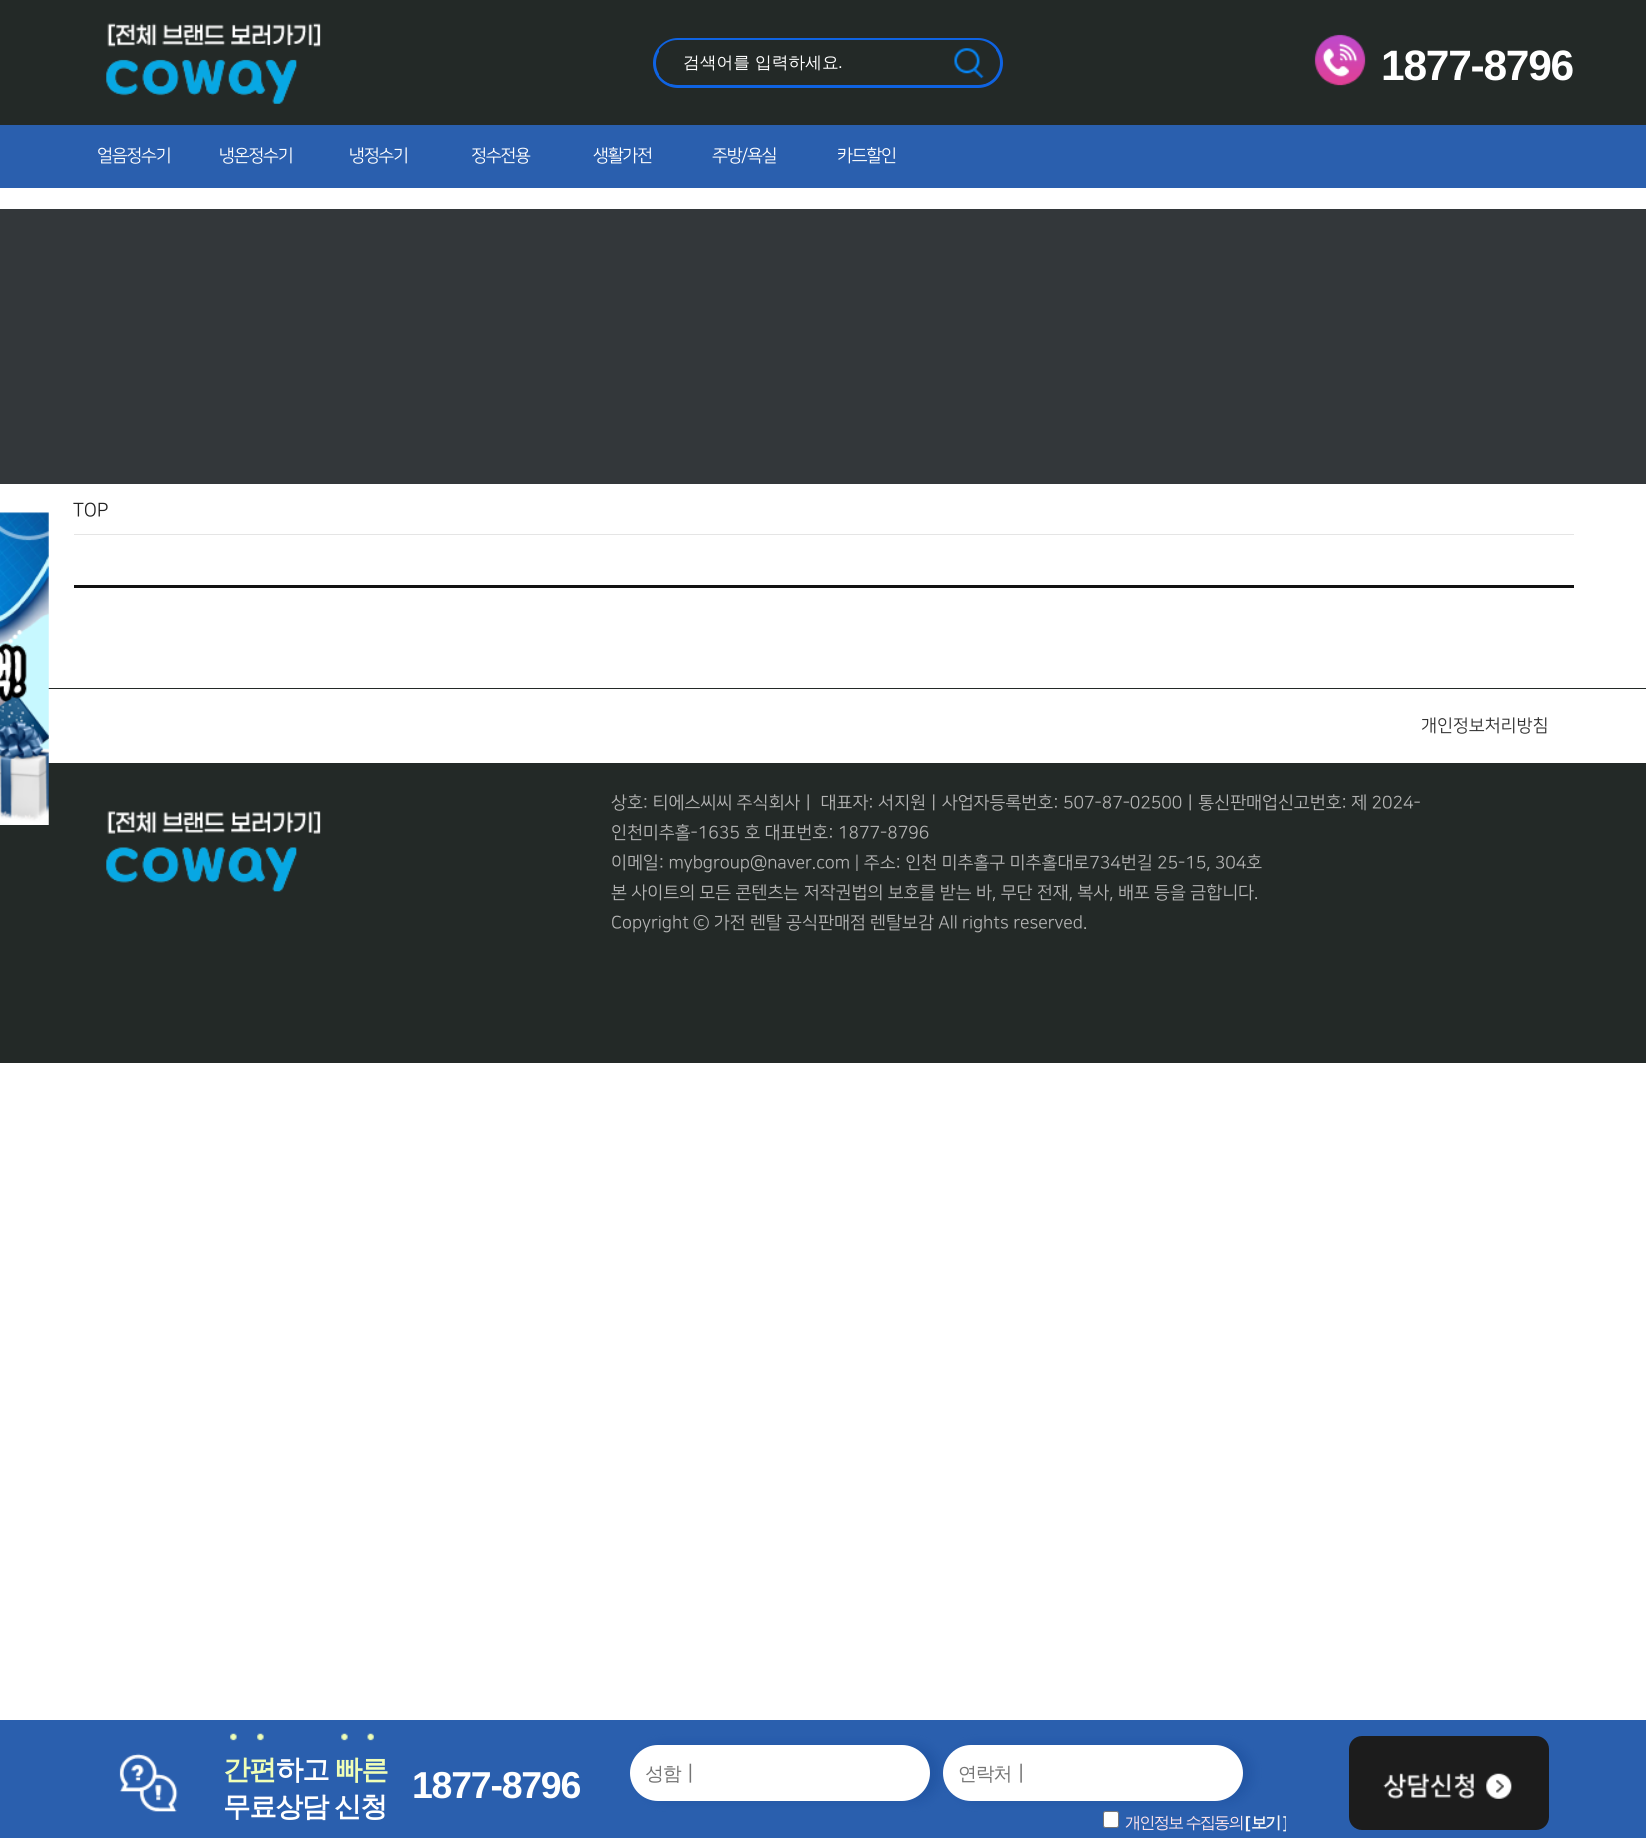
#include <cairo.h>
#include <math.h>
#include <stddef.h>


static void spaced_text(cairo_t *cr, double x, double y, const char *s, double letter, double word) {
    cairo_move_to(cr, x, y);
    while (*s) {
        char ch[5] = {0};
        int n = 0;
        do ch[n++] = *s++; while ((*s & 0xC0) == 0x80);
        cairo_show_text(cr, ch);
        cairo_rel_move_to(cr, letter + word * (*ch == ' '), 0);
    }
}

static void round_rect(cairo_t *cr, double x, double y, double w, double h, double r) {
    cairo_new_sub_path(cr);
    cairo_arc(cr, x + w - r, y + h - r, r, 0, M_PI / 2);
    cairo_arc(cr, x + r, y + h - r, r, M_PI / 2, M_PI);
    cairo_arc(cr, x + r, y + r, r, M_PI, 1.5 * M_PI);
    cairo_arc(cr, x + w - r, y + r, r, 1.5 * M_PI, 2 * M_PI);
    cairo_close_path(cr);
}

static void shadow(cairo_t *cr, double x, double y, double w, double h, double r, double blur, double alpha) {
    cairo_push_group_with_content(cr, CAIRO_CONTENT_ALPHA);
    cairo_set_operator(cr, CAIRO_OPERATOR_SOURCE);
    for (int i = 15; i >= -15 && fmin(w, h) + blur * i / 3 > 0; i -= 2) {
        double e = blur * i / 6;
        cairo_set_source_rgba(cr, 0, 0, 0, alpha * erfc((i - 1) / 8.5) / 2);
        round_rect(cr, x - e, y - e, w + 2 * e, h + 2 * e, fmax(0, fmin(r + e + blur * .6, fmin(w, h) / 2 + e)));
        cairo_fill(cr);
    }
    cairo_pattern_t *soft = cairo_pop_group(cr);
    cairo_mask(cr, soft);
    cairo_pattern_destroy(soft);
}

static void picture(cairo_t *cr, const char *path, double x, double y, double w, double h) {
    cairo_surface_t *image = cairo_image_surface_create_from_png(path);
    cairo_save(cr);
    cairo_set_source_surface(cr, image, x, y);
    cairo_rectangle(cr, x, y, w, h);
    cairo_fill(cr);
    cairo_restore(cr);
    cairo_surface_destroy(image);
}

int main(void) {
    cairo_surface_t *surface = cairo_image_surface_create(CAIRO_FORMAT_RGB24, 1646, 1838);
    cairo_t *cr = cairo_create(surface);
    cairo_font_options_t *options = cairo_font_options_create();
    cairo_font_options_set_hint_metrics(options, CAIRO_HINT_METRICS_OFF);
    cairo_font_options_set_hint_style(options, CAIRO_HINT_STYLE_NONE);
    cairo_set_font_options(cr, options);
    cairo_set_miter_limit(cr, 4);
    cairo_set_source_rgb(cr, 1, 1, 1);
    cairo_paint(cr);
    cairo_set_source_rgb(cr, 0.137, 0.161, 0.153);
    cairo_rectangle(cr, 0, 0, 1646, 125);
    cairo_fill(cr);
    picture(cr, "img1.png", 106, 23, 215, 81);
    round_rect(cr, 654.5, 39.5, 347, 47, 23.5);
    cairo_set_source_rgb(cr, 0.059, 0.388, 0.886);
    cairo_set_line_width(cr, 3);
    cairo_stroke(cr);
    cairo_save(cr);
    round_rect(cr, 655, 40, 345, 45, 22.5);
    cairo_clip(cr);
    cairo_set_source_rgb(cr, 0.137, 0.161, 0.153);
    cairo_rectangle(cr, 659, 40, 337, 44);
    cairo_fill(cr);
    cairo_restore(cr);
    cairo_select_font_face(cr, "WenQuanYi Zen Hei Medium", CAIRO_FONT_SLANT_NORMAL, CAIRO_FONT_WEIGHT_NORMAL);
    cairo_set_font_size(cr, 16.75);
    cairo_set_source_rgb(cr, 1, 1, 1);
    cairo_move_to(cr, 683, 68);
    cairo_show_text(cr, "검색어를 입력하세요");
    cairo_select_font_face(cr, "Liberation Sans", CAIRO_FONT_SLANT_NORMAL, CAIRO_FONT_WEIGHT_NORMAL);
    cairo_move_to(cr, 838, 68);
    cairo_show_text(cr, ".");
    picture(cr, "img2.png", 954, 48, 30, 31);
    picture(cr, "img3.png", 1314, 34, 52, 52);
    cairo_select_font_face(cr, "Liberation Sans", CAIRO_FONT_SLANT_NORMAL, CAIRO_FONT_WEIGHT_BOLD);
    cairo_set_font_size(cr, 42.5);
    spaced_text(cr, 1381, 80, "1877-8796", -1.25, 0);
    cairo_set_source_rgb(cr, 0.165, 0.373, 0.682);
    cairo_rectangle(cr, 0, 125, 1646, 63);
    cairo_fill(cr);
    cairo_select_font_face(cr, "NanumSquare", CAIRO_FONT_SLANT_NORMAL, CAIRO_FONT_WEIGHT_NORMAL);
    cairo_set_font_size(cr, 17.5);
    cairo_set_source_rgb(cr, 1, 1, 1);
    spaced_text(cr, 97, 161, "얼음정수기", -1.25, 0);
    spaced_text(cr, 219, 161, "냉온정수기", -1.25, 0);
    spaced_text(cr, 349, 161, "냉정수기", -1.25, 0);
    spaced_text(cr, 471, 161, "정수전용", -1.25, 0);
    spaced_text(cr, 593, 161, "생활가전", -1.25, 0);
    spaced_text(cr, 712, 161, "주방/욕실", -1.25, 0);
    spaced_text(cr, 837, 161, "카드할인", -1.25, 0);
    cairo_set_source_rgb(cr, 0.2, 0.216, 0.227);
    cairo_rectangle(cr, 0, 209, 1646, 275);
    cairo_fill(cr);
    cairo_set_source_rgb(cr, 0.898, 0.898, 0.898);
    cairo_rectangle(cr, 74, 534, 1500, 1);
    cairo_fill(cr);
    cairo_set_source_rgb(cr, 0.067, 0.067, 0.067);
    cairo_rectangle(cr, 74, 585, 1500, 3);
    cairo_fill(cr);
    cairo_set_font_size(cr, 19);
    cairo_set_source_rgb(cr, 0.133, 0.133, 0.133);
    cairo_move_to(cr, 73, 516);
    cairo_show_text(cr, "TOP");
    cairo_set_source_rgb(cr, 0.137, 0.161, 0.153);
    cairo_rectangle(cr, 0, 763, 1646, 300);
    cairo_fill(cr);
    cairo_rectangle(cr, 48, 688, 1598, 1);
    cairo_fill(cr);
    picture(cr, "img4.png", 0, 512, 49, 313);
    cairo_set_font_size(cr, 17.5);
    cairo_set_source_rgb(cr, 0.2, 0.2, 0.2);
    cairo_move_to(cr, 1421, 731);
    cairo_show_text(cr, "개인정보처리방침");
    picture(cr, "img5.png", 106, 811, 215, 81);
    cairo_set_source_rgb(cr, 0.706, 0.706, 0.706);
    cairo_move_to(cr, 611, 808);
    cairo_show_text(cr, "상호: 티에스씨씨 주식회사ㅣ 대표자: 서지원ㅣ사업자등록번호: 507-87-02500ㅣ통신판매업신고번호: 제 2024-");
    cairo_move_to(cr, 611, 838);
    cairo_show_text(cr, "인천미추홀-1635 호 대표번호: 1877-8796");
    cairo_move_to(cr, 611, 868);
    cairo_show_text(cr, "이메일: mybgroup@naver.com | 주소: 인천 미추홀구 미추홀대로734번길 25-15, 304호");
    cairo_move_to(cr, 611, 898);
    cairo_show_text(cr, "본 사이트의 모든 콘텐츠는 저작권법의 보호를 받는 바, 무단 전재, 복사, 배포 등을 금합니다.");
    cairo_move_to(cr, 611, 928);
    cairo_show_text(cr, "Copyright ⓒ 가전 렌탈 공식판매점 렌탈보감 All rights reserved.");
    cairo_set_source_rgb(cr, 0.165, 0.373, 0.682);
    cairo_rectangle(cr, 0, 1720, 1646, 118);
    cairo_fill(cr);
    picture(cr, "img6.png", 119, 1753, 59, 59);
    picture(cr, "img7.png", 230, 1733, 34, 8);
    cairo_select_font_face(cr, "WenQuanYi Zen Hei", CAIRO_FONT_SLANT_NORMAL, CAIRO_FONT_WEIGHT_BOLD);
    cairo_set_font_size(cr, 27.5);
    cairo_set_source_rgb(cr, 0.941, 1, 0.714);
    spaced_text(cr, 223, 1779, "간편", -1.25, 0);
    cairo_set_source_rgb(cr, 1, 1, 1);
    spaced_text(cr, 276, 1779, "하고", -1.25, 0);
    picture(cr, "img8.png", 341, 1733, 33, 8);
    cairo_set_source_rgb(cr, 0.941, 1, 0.714);
    spaced_text(cr, 335, 1779, "빠른", -1.25, 0);
    cairo_set_source_rgb(cr, 1, 1, 1);
    spaced_text(cr, 223, 1816, "무료상담 신청", -1.25, -1);
    cairo_select_font_face(cr, "Liberation Sans", CAIRO_FONT_SLANT_NORMAL, CAIRO_FONT_WEIGHT_BOLD);
    cairo_set_font_size(cr, 37.5);
    spaced_text(cr, 412, 1798, "1877-8796", -1.25, 0);
    cairo_save(cr);
    cairo_rectangle(cr, 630, 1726, 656, 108);
    cairo_clip(cr);
    cairo_set_source_rgb(cr, 0.129, 0.333, 0.639);
    shadow(cr, 639, 1745, 300, 56, 28, 6, 1);
    cairo_restore(cr);
    round_rect(cr, 630, 1745, 300, 56, 28);
    cairo_fill(cr);
    cairo_select_font_face(cr, "WenQuanYi Zen Hei Medium", CAIRO_FONT_SLANT_NORMAL, CAIRO_FONT_WEIGHT_NORMAL);
    cairo_set_font_size(cr, 19);
    cairo_set_source_rgb(cr, 0.459, 0.459, 0.459);
    spaced_text(cr, 645, 1780, "성함┃", -1.25, 0);
    cairo_set_source_rgb(cr, 0.129, 0.333, 0.639);
    shadow(cr, 951, 1745, 300, 56, 28, 6, 1);
    cairo_set_source_rgb(cr, 1, 1, 1);
    round_rect(cr, 943, 1745, 300, 56, 28);
    cairo_fill(cr);
    cairo_set_source_rgb(cr, 0.459, 0.459, 0.459);
    spaced_text(cr, 958, 1780, "연락처┃", -1.25, 0);
    cairo_set_source_rgb(cr, 1, 1, 1);
    round_rect(cr, 1103.5, 1811.5, 15, 16, 2);
    cairo_fill_preserve(cr);
    cairo_set_source_rgb(cr, 0.463, 0.463, 0.463);
    cairo_set_line_width(cr, 1);
    cairo_stroke(cr);
    cairo_set_font_size(cr, 16.25);
    cairo_set_source_rgb(cr, 1, 0.898, 0.925);
    spaced_text(cr, 1125, 1828, "개인정보 수집동의", -1.9, 0);
    cairo_select_font_face(cr, "Liberation Sans", CAIRO_FONT_SLANT_NORMAL, CAIRO_FONT_WEIGHT_BOLD);
    cairo_set_source_rgb(cr, 0.961, 0.961, 0.961);
    spaced_text(cr, 1245, 1828, "[", -1.9, 0);
    cairo_select_font_face(cr, "WenQuanYi Zen Hei", CAIRO_FONT_SLANT_NORMAL, CAIRO_FONT_WEIGHT_BOLD);
    spaced_text(cr, 1251, 1828, "보기", -1.9, 0);
    cairo_save(cr);
    cairo_rectangle(cr, 630, 1726, 656, 108);
    cairo_clip(cr);
    cairo_select_font_face(cr, "Liberation Sans", CAIRO_FONT_SLANT_NORMAL, CAIRO_FONT_WEIGHT_BOLD);
    spaced_text(cr, 1283, 1828, "]", -1.9, 0);
    cairo_restore(cr);
    cairo_set_source_rgb(cr, 0.11, 0.11, 0.11);
    round_rect(cr, 1349, 1736, 200, 94, 13);
    cairo_fill(cr);
    picture(cr, "img9.png", 1383, 1773, 129, 26);
    cairo_surface_write_to_png(surface, "page.png");
    cairo_font_options_destroy(options);
    cairo_destroy(cr);
    cairo_surface_destroy(surface);
    return 0;
}
